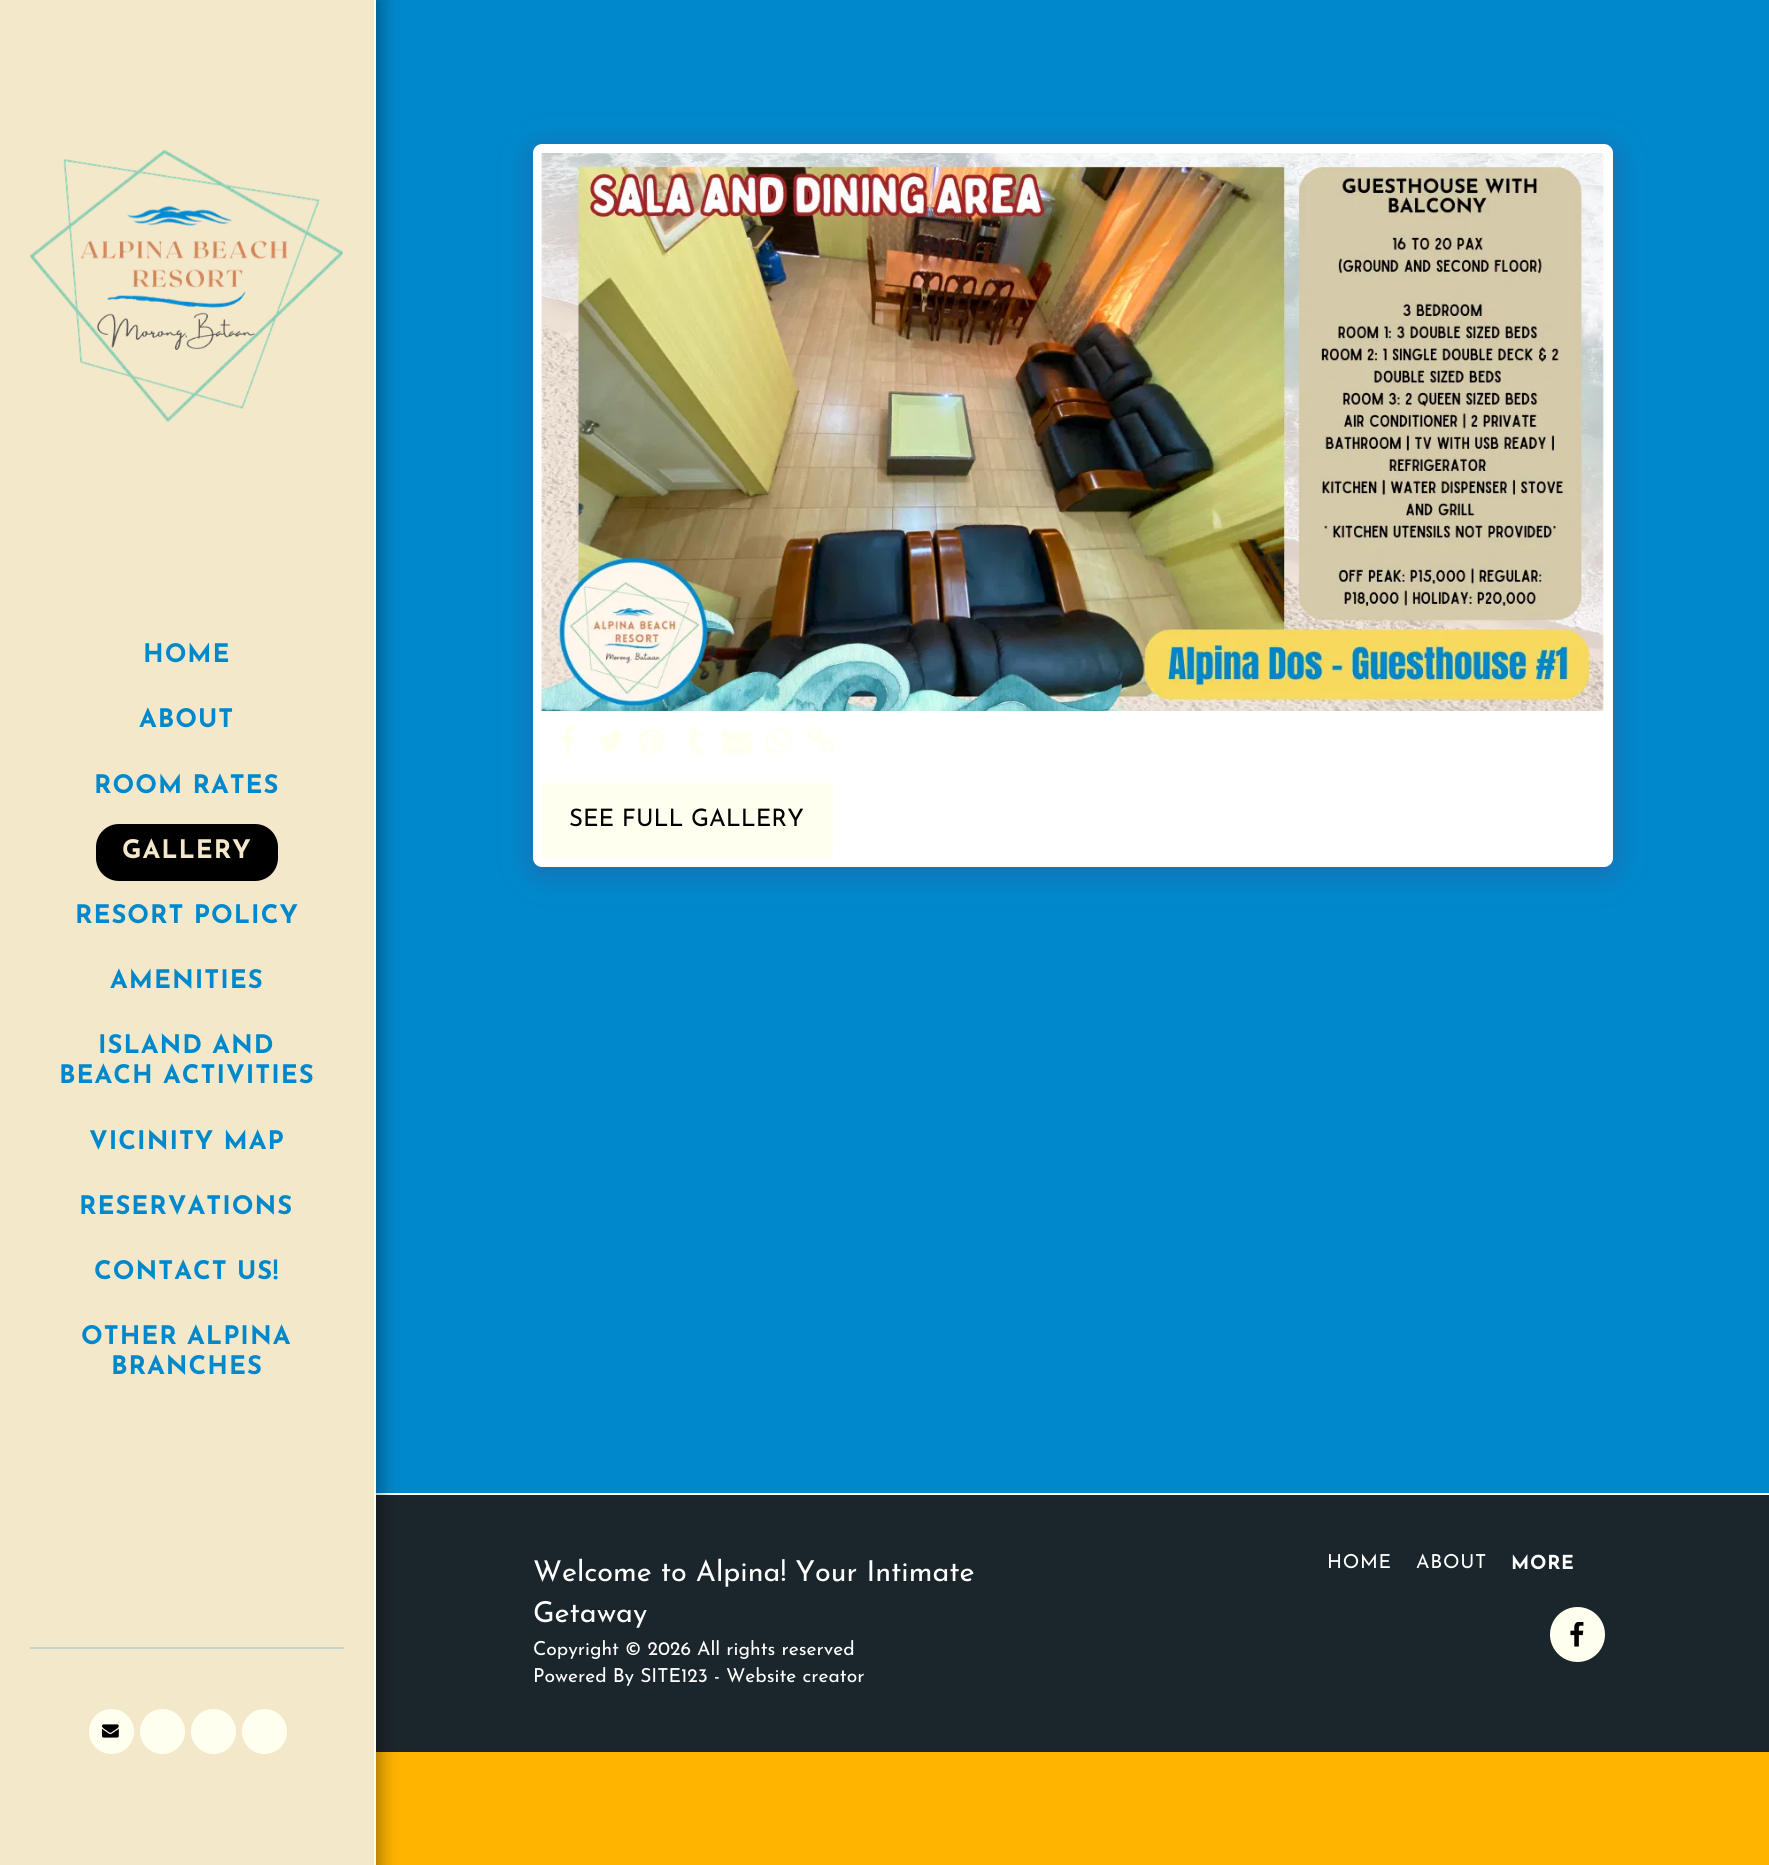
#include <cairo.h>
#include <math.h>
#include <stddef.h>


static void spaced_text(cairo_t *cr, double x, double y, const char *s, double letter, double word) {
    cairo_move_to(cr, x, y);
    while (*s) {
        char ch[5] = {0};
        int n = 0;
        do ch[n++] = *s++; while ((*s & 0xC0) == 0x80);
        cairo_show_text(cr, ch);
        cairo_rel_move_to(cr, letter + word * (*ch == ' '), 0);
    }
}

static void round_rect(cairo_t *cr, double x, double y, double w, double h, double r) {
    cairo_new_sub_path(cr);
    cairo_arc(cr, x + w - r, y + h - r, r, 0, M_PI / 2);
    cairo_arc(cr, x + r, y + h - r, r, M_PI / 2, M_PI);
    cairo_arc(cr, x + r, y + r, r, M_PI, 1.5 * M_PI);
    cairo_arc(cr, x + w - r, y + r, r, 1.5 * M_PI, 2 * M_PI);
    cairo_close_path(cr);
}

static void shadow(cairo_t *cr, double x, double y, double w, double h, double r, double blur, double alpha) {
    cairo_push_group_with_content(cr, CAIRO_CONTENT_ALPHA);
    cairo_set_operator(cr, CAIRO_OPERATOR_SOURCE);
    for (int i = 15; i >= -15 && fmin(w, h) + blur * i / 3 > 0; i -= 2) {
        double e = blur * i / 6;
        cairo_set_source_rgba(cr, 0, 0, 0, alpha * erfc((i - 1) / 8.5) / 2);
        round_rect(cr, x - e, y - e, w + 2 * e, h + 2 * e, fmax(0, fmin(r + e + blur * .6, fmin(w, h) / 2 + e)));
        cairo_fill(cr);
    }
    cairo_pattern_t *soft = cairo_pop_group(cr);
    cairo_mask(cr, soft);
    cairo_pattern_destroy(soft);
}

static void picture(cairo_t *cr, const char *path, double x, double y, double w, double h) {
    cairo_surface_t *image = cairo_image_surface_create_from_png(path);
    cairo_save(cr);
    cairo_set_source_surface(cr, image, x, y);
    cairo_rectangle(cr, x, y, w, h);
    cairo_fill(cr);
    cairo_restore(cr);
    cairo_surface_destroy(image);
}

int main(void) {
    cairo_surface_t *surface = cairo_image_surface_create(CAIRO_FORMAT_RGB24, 1769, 1865);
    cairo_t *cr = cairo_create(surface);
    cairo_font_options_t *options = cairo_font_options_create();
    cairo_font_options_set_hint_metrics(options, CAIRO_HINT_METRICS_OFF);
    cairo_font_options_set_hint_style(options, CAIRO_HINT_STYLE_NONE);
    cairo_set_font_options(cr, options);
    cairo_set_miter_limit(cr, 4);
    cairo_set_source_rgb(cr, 1, 0.706, 0);
    cairo_paint(cr);
    cairo_set_source_rgb(cr, 0, 0.533, 0.8);
    cairo_rectangle(cr, 376, 0, 1393, 1493);
    cairo_fill(cr);
    cairo_set_source_rgb(cr, 0.106, 0.149, 0.173);
    cairo_rectangle(cr, 376, 1495, 1393, 257);
    cairo_fill(cr);
    cairo_set_source_rgb(cr, 1, 1, 0.941);
    cairo_rectangle(cr, 375, 1493, 1394, 2);
    cairo_fill(cr);
    cairo_set_source_rgb(cr, 0, 0, 0);
    shadow(cr, 0, -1, 381, 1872, 0, 9, 0.35);
    cairo_set_source_rgb(cr, 0.957, 0.91, 0.796);
    cairo_rectangle(cr, 0, 0, 374, 1865);
    cairo_fill(cr);
    cairo_set_source_rgb(cr, 1, 1, 0.941);
    cairo_rectangle(cr, 374, 0, 2, 1865);
    cairo_fill(cr);
    picture(cr, "img1.png", 30, 150, 313, 272);
    cairo_select_font_face(cr, "Josefin Sans", CAIRO_FONT_SLANT_NORMAL, CAIRO_FONT_WEIGHT_BOLD);
    cairo_set_font_size(cr, 25.5);
    cairo_set_source_rgb(cr, 0, 0.533, 0.8);
    spaced_text(cr, 143, 662, "HOME", 1, 0);
    spaced_text(cr, 139, 727, "ABOUT", 1, 0);
    spaced_text(cr, 94, 793, "ROOM RATES", 1, 0);
    cairo_set_source_rgb(cr, 0, 0, 0);
    round_rect(cr, 96, 824, 182, 57, 23);
    cairo_fill(cr);
    cairo_set_source_rgb(cr, 0.957, 0.91, 0.796);
    spaced_text(cr, 122, 858, "GALLERY", 1, 0);
    cairo_set_source_rgb(cr, 0, 0.533, 0.8);
    spaced_text(cr, 75, 923, "RESORT POLICY", 1, 0);
    spaced_text(cr, 110, 988, "AMENITIES", 1, 0);
    spaced_text(cr, 98, 1053, "ISLAND AND", 1, 0);
    spaced_text(cr, 59, 1083, "BEACH ACTIVITIES", 1, 0);
    spaced_text(cr, 89, 1149, "VICINITY MAP", 1, 0);
    spaced_text(cr, 79, 1214, "RESERVATIONS", 1, 0);
    spaced_text(cr, 94, 1279, "CONTACT US!", 1, 0);
    spaced_text(cr, 81, 1344, "OTHER ALPINA", 1, 0);
    spaced_text(cr, 111, 1374, "BRANCHES", 1, 0);
    cairo_set_source_rgb(cr, 0.765, 0.835, 0.796);
    cairo_rectangle(cr, 30, 1647, 314, 2);
    cairo_fill(cr);
    cairo_set_source_rgb(cr, 1, 1, 0.941);
    cairo_arc(cr, 111.5, 1731.5, 22.5, 0, 2 * M_PI);
    cairo_fill(cr);
    picture(cr, "img2.png", 102, 1724, 17, 14);
    cairo_arc(cr, 162.5, 1731.5, 22.5, 0, 2 * M_PI);
    cairo_fill(cr);
    cairo_arc(cr, 213.5, 1731.5, 22.5, 0, 2 * M_PI);
    cairo_fill(cr);
    cairo_arc(cr, 264.5, 1731.5, 22.5, 0, 2 * M_PI);
    cairo_fill(cr);
    cairo_set_source_rgb(cr, 0.302, 0.247, 0.478);
    shadow(cr, 533, 149, 1080, 723, 9, 15, 0.4);
    cairo_set_source_rgb(cr, 1, 1, 1);
    round_rect(cr, 533, 144, 1080, 723, 9);
    cairo_fill(cr);
    picture(cr, "img3.png", 541, 153, 1063, 558);
    picture(cr, "img4.png", 561, 726, 15, 28);
    picture(cr, "img5.png", 598, 730, 26, 22);
    picture(cr, "img6.png", 639, 728, 26, 26);
    picture(cr, "img7.png", 686, 726, 17, 28);
    picture(cr, "img8.png", 722, 730, 30, 24);
    picture(cr, "img9.png", 765, 728, 26, 26);
    picture(cr, "img10.png", 807, 726, 27, 28);
    cairo_set_source_rgb(cr, 1, 1, 0.941);
    cairo_rectangle(cr, 542, 783, 291, 75);
    cairo_fill(cr);
    cairo_select_font_face(cr, "Josefin Sans", CAIRO_FONT_SLANT_NORMAL, CAIRO_FONT_WEIGHT_NORMAL);
    cairo_set_font_size(cr, 24);
    cairo_set_source_rgb(cr, 0, 0, 0);
    cairo_move_to(cr, 569, 826);
    cairo_show_text(cr, "SEE FULL GALLERY");
    cairo_set_font_size(cr, 28.75);
    cairo_set_source_rgb(cr, 1, 1, 1);
    cairo_move_to(cr, 533, 1581);
    cairo_show_text(cr, "Welcome to Alpina! Your Intimate");
    cairo_move_to(cr, 533, 1622);
    cairo_show_text(cr, "Getaway");
    cairo_set_font_size(cr, 19.25);
    cairo_move_to(cr, 533, 1655);
    cairo_show_text(cr, "Copyright © 2026 All rights reserved");
    cairo_move_to(cr, 533, 1682);
    cairo_show_text(cr, "Powered By SITE123 - Website creator");
    spaced_text(cr, 1327, 1568, "HOME", 0.75, 0);
    spaced_text(cr, 1416, 1568, "ABOUT", 0.75, 0);
    cairo_select_font_face(cr, "Josefin Sans", CAIRO_FONT_SLANT_NORMAL, CAIRO_FONT_WEIGHT_BOLD);
    spaced_text(cr, 1511, 1569, "MORE", 0.75, 0);
    cairo_set_source_rgb(cr, 1, 1, 0.941);
    cairo_new_path(cr);
    cairo_arc(cr, 1577.5, 1634.5, 26.5, 0, 2 * M_PI);
    cairo_fill_preserve(cr);
    cairo_stroke(cr);
    picture(cr, "img11.png", 1570, 1622, 14, 25);
    cairo_surface_write_to_png(surface, "page.png");
    cairo_font_options_destroy(options);
    cairo_destroy(cr);
    cairo_surface_destroy(surface);
    return 0;
}
